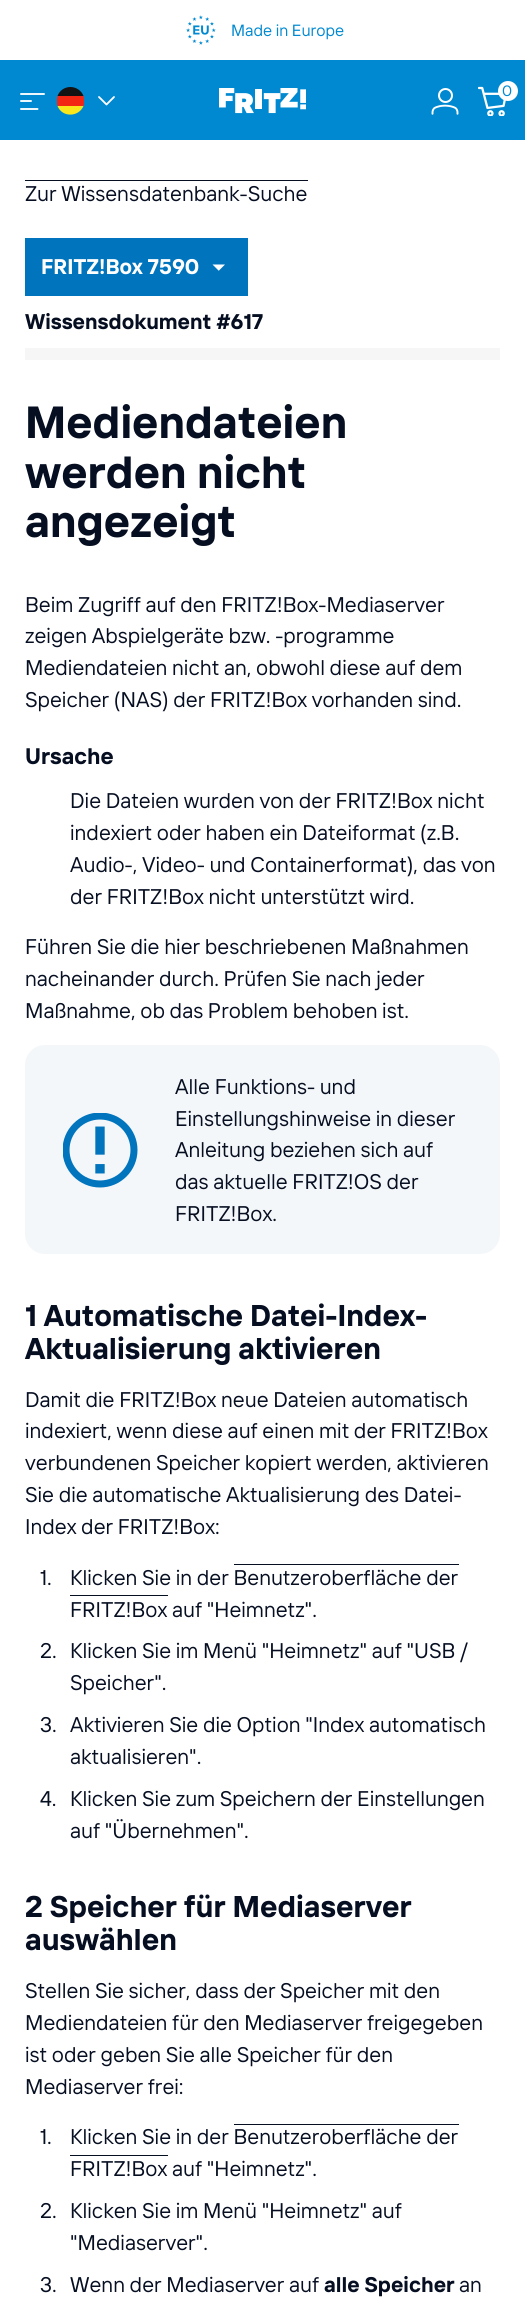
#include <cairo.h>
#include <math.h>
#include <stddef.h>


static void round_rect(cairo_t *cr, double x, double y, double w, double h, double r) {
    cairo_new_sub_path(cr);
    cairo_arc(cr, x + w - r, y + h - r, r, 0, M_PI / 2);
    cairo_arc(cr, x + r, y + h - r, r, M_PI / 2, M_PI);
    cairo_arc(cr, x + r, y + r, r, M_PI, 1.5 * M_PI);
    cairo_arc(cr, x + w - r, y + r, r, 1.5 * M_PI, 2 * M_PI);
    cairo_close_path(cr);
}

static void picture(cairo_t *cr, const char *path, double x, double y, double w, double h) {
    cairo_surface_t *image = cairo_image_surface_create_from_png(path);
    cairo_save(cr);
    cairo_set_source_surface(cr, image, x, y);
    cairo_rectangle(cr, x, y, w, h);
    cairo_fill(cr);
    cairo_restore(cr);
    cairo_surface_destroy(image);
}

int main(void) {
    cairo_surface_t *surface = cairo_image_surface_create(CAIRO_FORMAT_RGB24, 525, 2305);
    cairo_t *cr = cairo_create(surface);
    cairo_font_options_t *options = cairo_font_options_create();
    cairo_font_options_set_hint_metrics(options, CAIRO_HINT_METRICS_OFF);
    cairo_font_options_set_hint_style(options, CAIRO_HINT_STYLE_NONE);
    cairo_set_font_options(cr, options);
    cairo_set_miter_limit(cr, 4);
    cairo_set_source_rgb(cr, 1, 1, 1);
    cairo_paint(cr);
    picture(cr, "img1.png", 186, 15, 30, 30);
    cairo_select_font_face(cr, "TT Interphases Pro", CAIRO_FONT_SLANT_NORMAL, CAIRO_FONT_WEIGHT_NORMAL);
    cairo_set_font_size(cr, 16.25);
    cairo_set_source_rgb(cr, 0, 0.537, 0.82);
    cairo_move_to(cr, 231, 36);
    cairo_show_text(cr, "Made in Europe");
    cairo_rectangle(cr, 0, 60, 525, 80);
    cairo_fill(cr);
    cairo_new_path(cr);
    cairo_move_to(cr, 21, 94);
    cairo_line_to(cr, 44, 94);
    cairo_move_to(cr, 21, 101);
    cairo_line_to(cr, 31, 101);
    cairo_move_to(cr, 21, 109);
    cairo_line_to(cr, 37.5, 109);
    cairo_set_source_rgb(cr, 1, 1, 1);
    cairo_set_line_width(cr, 1.9);
    cairo_set_line_cap(cr, CAIRO_LINE_CAP_ROUND);
    cairo_stroke(cr);
    cairo_save(cr);
    cairo_rectangle(cr, 57, 87, 27, 28);
    cairo_clip(cr);
    cairo_set_source_rgb(cr, 0.953, 0.149, 0.078);
    cairo_new_path(cr);
    cairo_move_to(cr, 83.5, 96);
    cairo_line_to(cr, 57.5, 96);
    cairo_curve_to(cr, 56.5, 99, 56.5, 103, 57.5, 106);
    cairo_line_to(cr, 83.5, 106);
    cairo_curve_to(cr, 84.5, 103, 84.5, 99, 83.5, 96);
    cairo_close_path(cr);
    cairo_fill(cr);
    cairo_restore(cr);
    cairo_set_source_rgb(cr, 0.973, 0.906, 0.11);
    cairo_new_path(cr);
    cairo_move_to(cr, 83.5, 106);
    cairo_line_to(cr, 57.5, 106);
    cairo_curve_to(cr, 62, 117.5, 78.5, 117.5, 83.5, 106);
    cairo_close_path(cr);
    cairo_fill(cr);
    cairo_set_source_rgb(cr, 0.075, 0.078, 0.075);
    cairo_new_path(cr);
    cairo_move_to(cr, 70.5, 87);
    cairo_curve_to(cr, 76, 87, 81.5, 90.5, 83.5, 96);
    cairo_line_to(cr, 57.5, 96);
    cairo_curve_to(cr, 59.5, 90.5, 64.5, 87, 70.5, 87);
    cairo_close_path(cr);
    cairo_fill(cr);
    cairo_new_path(cr);
    cairo_move_to(cr, 99, 97);
    cairo_line_to(cr, 106.5, 104.5);
    cairo_line_to(cr, 114, 97);
    cairo_set_source_rgb(cr, 1, 1, 1);
    cairo_set_line_width(cr, 1.8);
    cairo_set_line_join(cr, CAIRO_LINE_JOIN_ROUND);
    cairo_stroke(cr);
    picture(cr, "img2.png", 219, 88, 87, 26);
    picture(cr, "img3.png", 431, 88, 28, 27);
    picture(cr, "img4.png", 478, 86, 28, 30);
    cairo_arc(cr, 508, 91, 10, 0, 2 * M_PI);
    cairo_fill(cr);
    cairo_set_font_size(cr, 15);
    cairo_set_source_rgb(cr, 0, 0.537, 0.82);
    cairo_move_to(cr, 502, 96);
    cairo_show_text(cr, "0");
    cairo_set_font_size(cr, 21.25);
    cairo_set_source_rgb(cr, 0.027, 0.055, 0.129);
    cairo_move_to(cr, 25, 201);
    cairo_show_text(cr, "Zur Wissensdatenbank-Suche");
    cairo_rectangle(cr, 25, 180, 283, 1);
    cairo_fill(cr);
    cairo_set_source_rgb(cr, 0.961, 0.961, 0.961);
    cairo_rectangle(cr, 25, 348, 475, 12);
    cairo_fill(cr);
    cairo_set_source_rgb(cr, 0, 0.455, 0.741);
    cairo_rectangle(cr, 25, 238, 223, 58);
    cairo_fill(cr);
    cairo_select_font_face(cr, "TT Interphases Pro", CAIRO_FONT_SLANT_NORMAL, CAIRO_FONT_WEIGHT_BOLD);
    cairo_set_source_rgb(cr, 1, 1, 1);
    cairo_move_to(cr, 41, 274);
    cairo_show_text(cr, "FRITZ!Box 7590");
    picture(cr, "img5.png", 212, 264, 13, 7);
    cairo_set_source_rgb(cr, 0.027, 0.055, 0.129);
    cairo_move_to(cr, 25, 329);
    cairo_show_text(cr, "Wissensdokument #617");
    cairo_set_font_size(cr, 45);
    cairo_move_to(cr, 25, 438);
    cairo_show_text(cr, "Mediendateien");
    cairo_move_to(cr, 25, 488);
    cairo_show_text(cr, "werden nicht");
    cairo_move_to(cr, 25, 537);
    cairo_show_text(cr, "angezeigt");
    cairo_select_font_face(cr, "TT Interphases Pro", CAIRO_FONT_SLANT_NORMAL, CAIRO_FONT_WEIGHT_NORMAL);
    cairo_set_font_size(cr, 21.25);
    cairo_move_to(cr, 25, 612);
    cairo_show_text(cr, "Beim Zugriff auf den FRITZ!Box-Mediaserver");
    cairo_move_to(cr, 25, 643);
    cairo_show_text(cr, "zeigen Abspielgeräte bzw. -programme");
    cairo_move_to(cr, 25, 675);
    cairo_show_text(cr, "Mediendateien nicht an, obwohl diese auf dem");
    cairo_move_to(cr, 25, 707);
    cairo_show_text(cr, "Speicher (NAS) der FRITZ!Box vorhanden sind.");
    cairo_select_font_face(cr, "TT Interphases Pro", CAIRO_FONT_SLANT_NORMAL, CAIRO_FONT_WEIGHT_BOLD);
    cairo_set_font_size(cr, 22.5);
    cairo_move_to(cr, 25, 764);
    cairo_show_text(cr, "Ursache");
    cairo_select_font_face(cr, "TT Interphases Pro", CAIRO_FONT_SLANT_NORMAL, CAIRO_FONT_WEIGHT_NORMAL);
    cairo_set_font_size(cr, 21.25);
    cairo_move_to(cr, 70, 808);
    cairo_show_text(cr, "Die Dateien wurden von der FRITZ!Box nicht");
    cairo_move_to(cr, 70, 840);
    cairo_show_text(cr, "indexiert oder haben ein Dateiformat (z.B.");
    cairo_move_to(cr, 70, 872);
    cairo_show_text(cr, "Audio-, Video- und Containerformat), das von");
    cairo_move_to(cr, 70, 904);
    cairo_show_text(cr, "der FRITZ!Box nicht unterstützt wird.");
    cairo_move_to(cr, 25, 954);
    cairo_show_text(cr, "Führen Sie die hier beschriebenen Maßnahmen");
    cairo_move_to(cr, 25, 986);
    cairo_show_text(cr, "nacheinander durch. Prüfen Sie nach jeder");
    cairo_move_to(cr, 25, 1018);
    cairo_show_text(cr, "Maßnahme, ob das Problem behoben ist.");
    cairo_set_source_rgb(cr, 0.957, 0.965, 0.973);
    round_rect(cr, 25, 1045, 475, 209, 20);
    cairo_fill(cr);
    cairo_set_source_rgb(cr, 0.027, 0.055, 0.129);
    cairo_move_to(cr, 175, 1094);
    cairo_show_text(cr, "Alle Funktions- und");
    picture(cr, "img6.png", 63, 1113, 75, 75);
    cairo_move_to(cr, 175, 1126);
    cairo_show_text(cr, "Einstellungshinweise in dieser");
    cairo_move_to(cr, 175, 1157);
    cairo_show_text(cr, "Anleitung beziehen sich auf");
    cairo_move_to(cr, 175, 1189);
    cairo_show_text(cr, "das aktuelle FRITZ!OS der");
    cairo_move_to(cr, 175, 1221);
    cairo_show_text(cr, "FRITZ!Box.");
    cairo_select_font_face(cr, "TT Interphases Pro", CAIRO_FONT_SLANT_NORMAL, CAIRO_FONT_WEIGHT_BOLD);
    cairo_set_font_size(cr, 30);
    cairo_move_to(cr, 25, 1326);
    cairo_show_text(cr, "1 Automatische Datei-Index-");
    cairo_move_to(cr, 25, 1359);
    cairo_show_text(cr, "Aktualisierung aktivieren");
    cairo_select_font_face(cr, "TT Interphases Pro", CAIRO_FONT_SLANT_NORMAL, CAIRO_FONT_WEIGHT_NORMAL);
    cairo_set_font_size(cr, 21.25);
    cairo_move_to(cr, 25, 1407);
    cairo_show_text(cr, "Damit die FRITZ!Box neue Dateien automatisch");
    cairo_move_to(cr, 25, 1438);
    cairo_show_text(cr, "indexiert, wenn diese auf einen mit der FRITZ!Box");
    cairo_move_to(cr, 25, 1470);
    cairo_show_text(cr, "verbundenen Speicher kopiert werden, aktivieren");
    cairo_move_to(cr, 25, 1502);
    cairo_show_text(cr, "Sie die automatische Aktualisierung des Datei-");
    cairo_move_to(cr, 25, 1534);
    cairo_show_text(cr, "Index der FRITZ!Box:");
    cairo_move_to(cr, 40, 1585);
    cairo_show_text(cr, "1.");
    cairo_move_to(cr, 70, 1585);
    cairo_show_text(cr, "Klicken Sie in der Benutzeroberfläche der");
    cairo_move_to(cr, 70, 1617);
    cairo_show_text(cr, "FRITZ!Box");
    cairo_rectangle(cr, 234, 1564, 225, 1);
    cairo_fill(cr);
    cairo_rectangle(cr, 70, 1595, 98, 1);
    cairo_fill(cr);
    cairo_move_to(cr, 172, 1617);
    cairo_show_text(cr, "auf \"Heimnetz\".");
    cairo_move_to(cr, 40, 1658);
    cairo_show_text(cr, "2.");
    cairo_move_to(cr, 70, 1658);
    cairo_show_text(cr, "Klicken Sie im Menü \"Heimnetz\" auf \"USB /");
    cairo_move_to(cr, 70, 1690);
    cairo_show_text(cr, "Speicher\".");
    cairo_move_to(cr, 40, 1732);
    cairo_show_text(cr, "3.");
    cairo_move_to(cr, 70, 1732);
    cairo_show_text(cr, "Aktivieren Sie die Option \"Index automatisch");
    cairo_move_to(cr, 70, 1764);
    cairo_show_text(cr, "aktualisieren\".");
    cairo_move_to(cr, 40, 1806);
    cairo_show_text(cr, "4.");
    cairo_move_to(cr, 70, 1806);
    cairo_show_text(cr, "Klicken Sie zum Speichern der Einstellungen");
    cairo_move_to(cr, 70, 1838);
    cairo_show_text(cr, "auf \"Übernehmen\".");
    cairo_select_font_face(cr, "TT Interphases Pro", CAIRO_FONT_SLANT_NORMAL, CAIRO_FONT_WEIGHT_BOLD);
    cairo_set_font_size(cr, 30);
    cairo_move_to(cr, 25, 1917);
    cairo_show_text(cr, "2 Speicher für Mediaserver");
    cairo_move_to(cr, 25, 1950);
    cairo_show_text(cr, "auswählen");
    cairo_select_font_face(cr, "TT Interphases Pro", CAIRO_FONT_SLANT_NORMAL, CAIRO_FONT_WEIGHT_NORMAL);
    cairo_set_font_size(cr, 21.25);
    cairo_move_to(cr, 25, 1998);
    cairo_show_text(cr, "Stellen Sie sicher, dass der Speicher mit den");
    cairo_move_to(cr, 25, 2030);
    cairo_show_text(cr, "Mediendateien für den Mediaserver freigegeben");
    cairo_move_to(cr, 25, 2062);
    cairo_show_text(cr, "ist oder geben Sie alle Speicher für den");
    cairo_move_to(cr, 25, 2094);
    cairo_show_text(cr, "Mediaserver frei:");
    cairo_move_to(cr, 40, 2144);
    cairo_show_text(cr, "1.");
    cairo_move_to(cr, 70, 2144);
    cairo_show_text(cr, "Klicken Sie in der Benutzeroberfläche der");
    cairo_move_to(cr, 70, 2176);
    cairo_show_text(cr, "FRITZ!Box");
    cairo_rectangle(cr, 234, 2124, 225, 1);
    cairo_fill(cr);
    cairo_rectangle(cr, 70, 2155, 98, 1);
    cairo_fill(cr);
    cairo_move_to(cr, 172, 2176);
    cairo_show_text(cr, "auf \"Heimnetz\".");
    cairo_move_to(cr, 40, 2218);
    cairo_show_text(cr, "2.");
    cairo_move_to(cr, 70, 2218);
    cairo_show_text(cr, "Klicken Sie im Menü \"Heimnetz\" auf");
    cairo_move_to(cr, 70, 2250);
    cairo_show_text(cr, "\"Mediaserver\".");
    cairo_move_to(cr, 40, 2292);
    cairo_show_text(cr, "3.");
    cairo_move_to(cr, 70, 2292);
    cairo_show_text(cr, "Wenn der Mediaserver auf");
    cairo_select_font_face(cr, "TT Interphases Pro", CAIRO_FONT_SLANT_NORMAL, CAIRO_FONT_WEIGHT_BOLD);
    cairo_move_to(cr, 324, 2292);
    cairo_show_text(cr, "alle Speicher");
    cairo_select_font_face(cr, "TT Interphases Pro", CAIRO_FONT_SLANT_NORMAL, CAIRO_FONT_WEIGHT_NORMAL);
    cairo_move_to(cr, 459, 2292);
    cairo_show_text(cr, "an");
    cairo_surface_write_to_png(surface, "page.png");
    cairo_font_options_destroy(options);
    cairo_destroy(cr);
    cairo_surface_destroy(surface);
    return 0;
}
